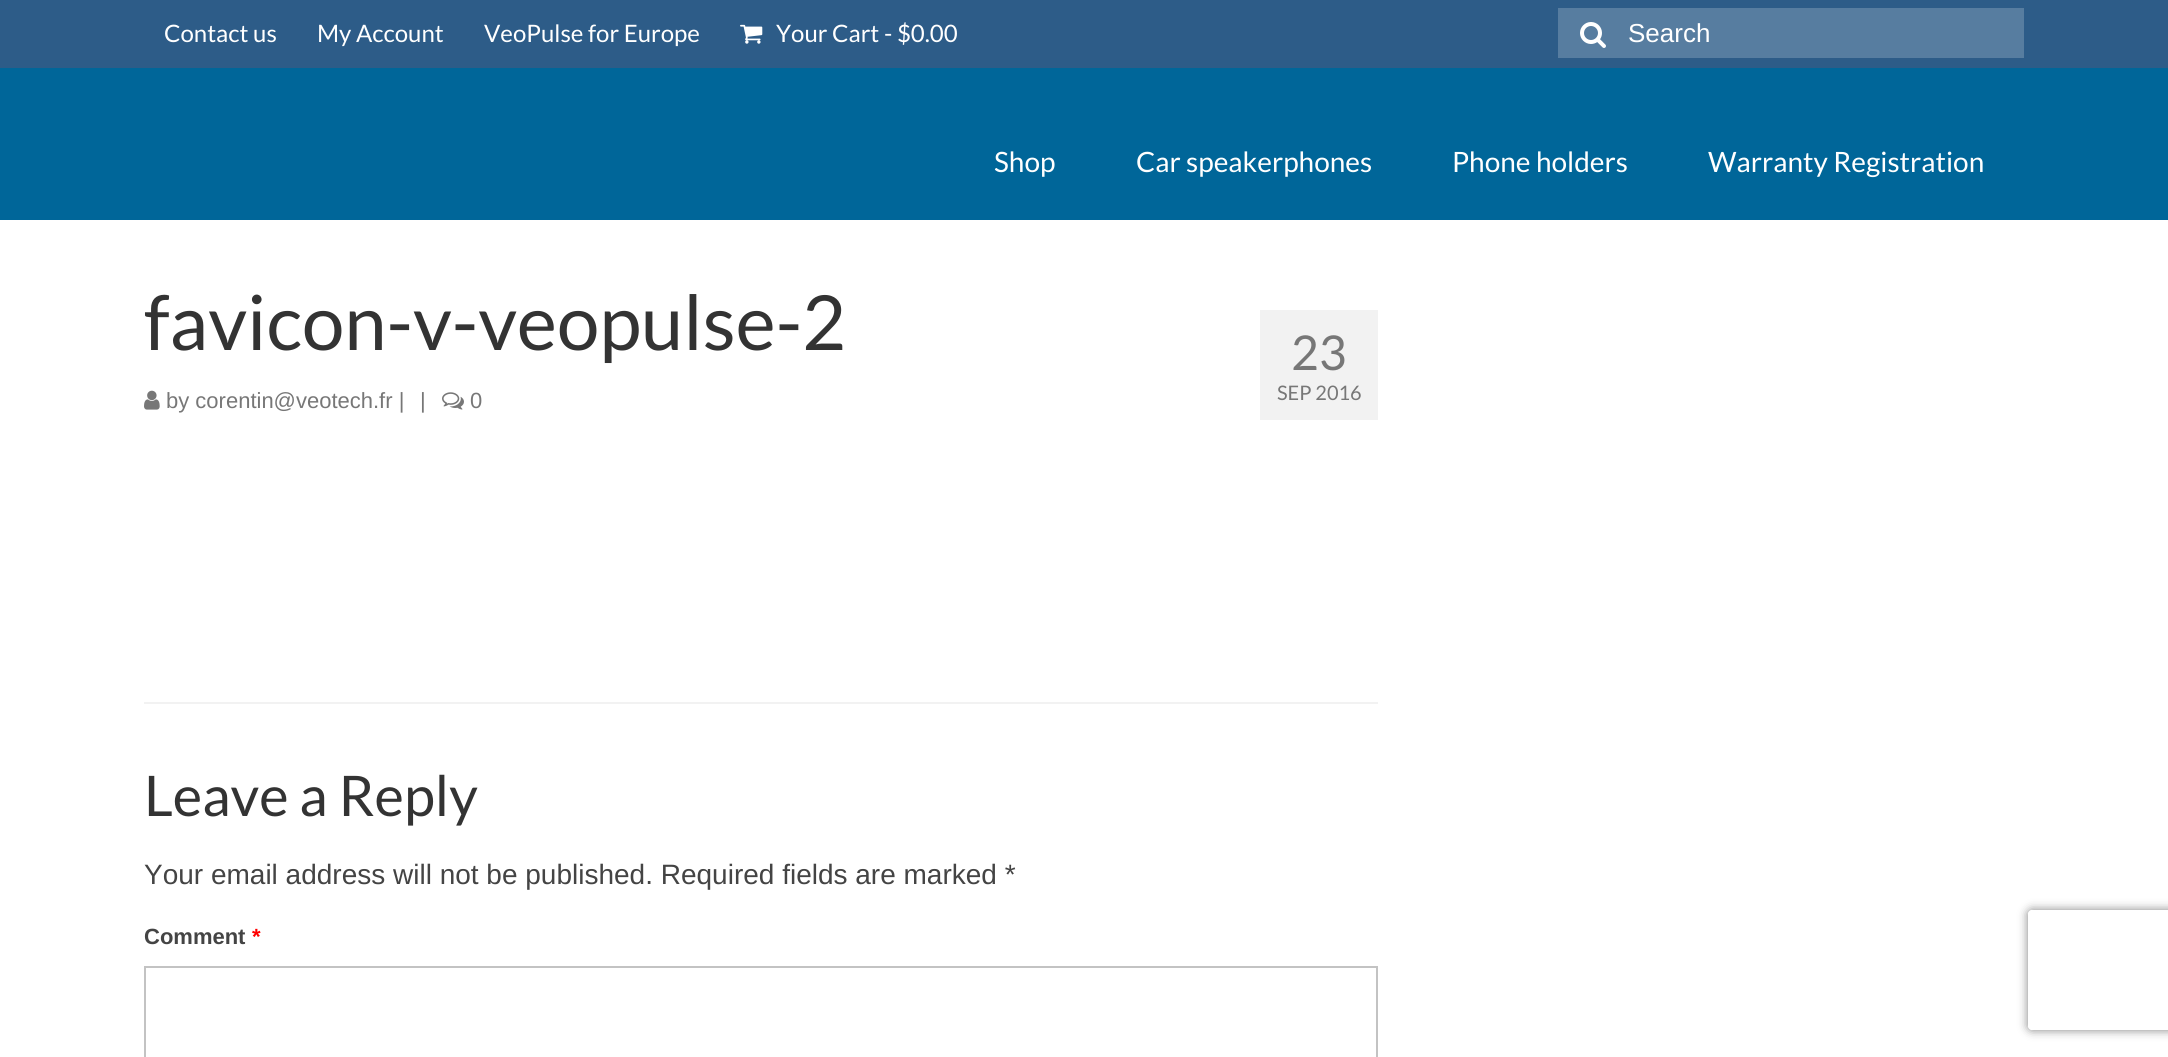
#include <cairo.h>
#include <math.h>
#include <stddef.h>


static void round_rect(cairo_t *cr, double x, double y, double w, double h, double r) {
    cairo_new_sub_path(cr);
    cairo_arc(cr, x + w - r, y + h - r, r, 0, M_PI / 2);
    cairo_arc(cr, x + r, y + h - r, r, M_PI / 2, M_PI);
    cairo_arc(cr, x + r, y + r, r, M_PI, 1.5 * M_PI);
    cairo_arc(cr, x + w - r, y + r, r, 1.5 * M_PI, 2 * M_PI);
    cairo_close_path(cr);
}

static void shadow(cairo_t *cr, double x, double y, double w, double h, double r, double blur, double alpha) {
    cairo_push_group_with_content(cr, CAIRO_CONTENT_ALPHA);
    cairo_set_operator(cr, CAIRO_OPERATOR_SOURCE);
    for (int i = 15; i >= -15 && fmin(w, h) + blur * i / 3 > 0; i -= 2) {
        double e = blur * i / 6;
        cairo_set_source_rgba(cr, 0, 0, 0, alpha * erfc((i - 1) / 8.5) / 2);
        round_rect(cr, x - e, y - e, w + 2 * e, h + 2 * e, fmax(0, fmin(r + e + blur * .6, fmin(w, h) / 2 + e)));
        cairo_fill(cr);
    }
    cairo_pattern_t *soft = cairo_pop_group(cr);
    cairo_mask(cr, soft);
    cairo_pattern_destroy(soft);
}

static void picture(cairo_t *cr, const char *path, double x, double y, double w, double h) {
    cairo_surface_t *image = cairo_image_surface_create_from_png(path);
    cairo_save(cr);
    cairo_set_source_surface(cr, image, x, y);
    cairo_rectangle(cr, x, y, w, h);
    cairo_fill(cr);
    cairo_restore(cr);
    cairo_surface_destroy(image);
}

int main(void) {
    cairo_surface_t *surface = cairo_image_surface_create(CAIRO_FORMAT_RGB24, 2168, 1057);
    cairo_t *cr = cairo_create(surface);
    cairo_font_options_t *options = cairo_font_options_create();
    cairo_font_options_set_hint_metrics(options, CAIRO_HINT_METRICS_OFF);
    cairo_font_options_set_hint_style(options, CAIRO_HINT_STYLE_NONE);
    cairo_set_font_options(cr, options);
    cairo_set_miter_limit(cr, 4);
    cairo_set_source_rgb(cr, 1, 1, 1);
    cairo_paint(cr);
    cairo_set_source_rgb(cr, 0, 0.4, 0.6);
    cairo_rectangle(cr, 0, 68, 2168, 152);
    cairo_fill(cr);
    cairo_set_source_rgb(cr, 0.176, 0.361, 0.533);
    cairo_rectangle(cr, 0, 0, 2168, 68);
    cairo_fill(cr);
    cairo_select_font_face(cr, "Lato", CAIRO_FONT_SLANT_NORMAL, CAIRO_FONT_WEIGHT_NORMAL);
    cairo_set_font_size(cr, 24);
    cairo_set_source_rgb(cr, 1, 1, 1);
    cairo_move_to(cr, 164, 42);
    cairo_show_text(cr, "Contact us");
    cairo_move_to(cr, 317, 42);
    cairo_show_text(cr, "My Account");
    cairo_move_to(cr, 484, 42);
    cairo_show_text(cr, "VeoPulse for Europe");
    picture(cr, "img1.png", 740, 24, 23, 20);
    cairo_move_to(cr, 776, 42);
    cairo_show_text(cr, "Your Cart - $0.00");
    cairo_set_source_rgb(cr, 0.341, 0.49, 0.627);
    cairo_rectangle(cr, 1558, 8, 466, 50);
    cairo_fill(cr);
    picture(cr, "img2.png", 1580, 22, 26, 26);
    cairo_select_font_face(cr, "Liberation Sans", CAIRO_FONT_SLANT_NORMAL, CAIRO_FONT_WEIGHT_NORMAL);
    cairo_set_font_size(cr, 26);
    cairo_set_source_rgb(cr, 1, 1, 1);
    cairo_move_to(cr, 1628, 42);
    cairo_show_text(cr, "Search");
    cairo_select_font_face(cr, "Lato", CAIRO_FONT_SLANT_NORMAL, CAIRO_FONT_WEIGHT_NORMAL);
    cairo_set_font_size(cr, 28);
    cairo_move_to(cr, 994, 172);
    cairo_show_text(cr, "Shop");
    cairo_move_to(cr, 1136, 172);
    cairo_show_text(cr, "Car speakerphones");
    cairo_move_to(cr, 1452, 172);
    cairo_show_text(cr, "Phone holders");
    cairo_move_to(cr, 1708, 172);
    cairo_show_text(cr, "Warranty Registration");
    cairo_set_font_size(cr, 76);
    cairo_set_source_rgb(cr, 0.2, 0.2, 0.2);
    cairo_move_to(cr, 144, 350);
    cairo_show_text(cr, "favicon-v-veopulse-2");
    picture(cr, "img3.png", 144, 390, 16, 20);
    cairo_select_font_face(cr, "Liberation Sans", CAIRO_FONT_SLANT_NORMAL, CAIRO_FONT_WEIGHT_NORMAL);
    cairo_set_font_size(cr, 22);
    cairo_set_source_rgb(cr, 0.467, 0.467, 0.467);
    cairo_move_to(cr, 166, 408);
    cairo_show_text(cr, "by corentin@veotech.fr |");
    cairo_move_to(cr, 420, 408);
    cairo_show_text(cr, "|");
    picture(cr, "img4.png", 442, 392, 22, 18);
    cairo_move_to(cr, 470, 408);
    cairo_show_text(cr, "0");
    cairo_set_source_rgb(cr, 0.949, 0.949, 0.949);
    cairo_rectangle(cr, 1260, 310, 118, 110);
    cairo_fill(cr);
    cairo_select_font_face(cr, "Lato", CAIRO_FONT_SLANT_NORMAL, CAIRO_FONT_WEIGHT_NORMAL);
    cairo_set_font_size(cr, 48);
    cairo_set_source_rgb(cr, 0.467, 0.467, 0.467);
    cairo_move_to(cr, 1291, 370);
    cairo_show_text(cr, "23");
    cairo_set_font_size(cr, 20);
    cairo_move_to(cr, 1277, 400);
    cairo_show_text(cr, "SEP 2016");
    cairo_set_source_rgb(cr, 0.949, 0.949, 0.949);
    cairo_rectangle(cr, 144, 702, 1234, 2);
    cairo_fill(cr);
    cairo_set_font_size(cr, 56);
    cairo_set_source_rgb(cr, 0.2, 0.2, 0.2);
    cairo_move_to(cr, 144, 816);
    cairo_show_text(cr, "Leave a Reply");
    cairo_select_font_face(cr, "Liberation Sans", CAIRO_FONT_SLANT_NORMAL, CAIRO_FONT_WEIGHT_NORMAL);
    cairo_set_font_size(cr, 28);
    cairo_set_source_rgb(cr, 0.267, 0.267, 0.267);
    cairo_move_to(cr, 144, 884);
    cairo_show_text(cr, "Your email address will not be published. Required fields are marked *");
    cairo_select_font_face(cr, "Liberation Sans", CAIRO_FONT_SLANT_NORMAL, CAIRO_FONT_WEIGHT_BOLD);
    cairo_set_font_size(cr, 22);
    cairo_move_to(cr, 144, 944);
    cairo_show_text(cr, "Comment");
    cairo_set_source_rgb(cr, 1, 0, 0);
    cairo_move_to(cr, 252, 944);
    cairo_show_text(cr, "*");
    cairo_rectangle(cr, 145, 967, 1232, 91);
    cairo_set_source_rgb(cr, 0.765, 0.765, 0.765);
    cairo_stroke(cr);
    cairo_save(cr);
    cairo_set_fill_rule(cr, CAIRO_FILL_RULE_EVEN_ODD);
    cairo_new_path(cr);
    cairo_move_to(cr, 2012, 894);
    cairo_line_to(cr, 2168, 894);
    cairo_line_to(cr, 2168, 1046);
    cairo_line_to(cr, 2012, 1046);
    cairo_close_path(cr);
    cairo_move_to(cr, 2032, 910);
    cairo_line_to(cr, 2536, 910);
    cairo_curve_to(cr, 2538, 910, 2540, 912, 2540, 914);
    cairo_line_to(cr, 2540, 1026);
    cairo_curve_to(cr, 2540, 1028, 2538, 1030, 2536, 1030);
    cairo_line_to(cr, 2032, 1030);
    cairo_curve_to(cr, 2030, 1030, 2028, 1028, 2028, 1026);
    cairo_line_to(cr, 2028, 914);
    cairo_curve_to(cr, 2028, 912, 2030, 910, 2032, 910);
    cairo_close_path(cr);
    cairo_clip(cr);
    cairo_set_source_rgb(cr, 0.502, 0.502, 0.502);
    shadow(cr, 2028, 910, 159, 120, 4, 5, 1);
    cairo_restore(cr);
    cairo_surface_write_to_png(surface, "page.png");
    cairo_font_options_destroy(options);
    cairo_destroy(cr);
    cairo_surface_destroy(surface);
    return 0;
}
